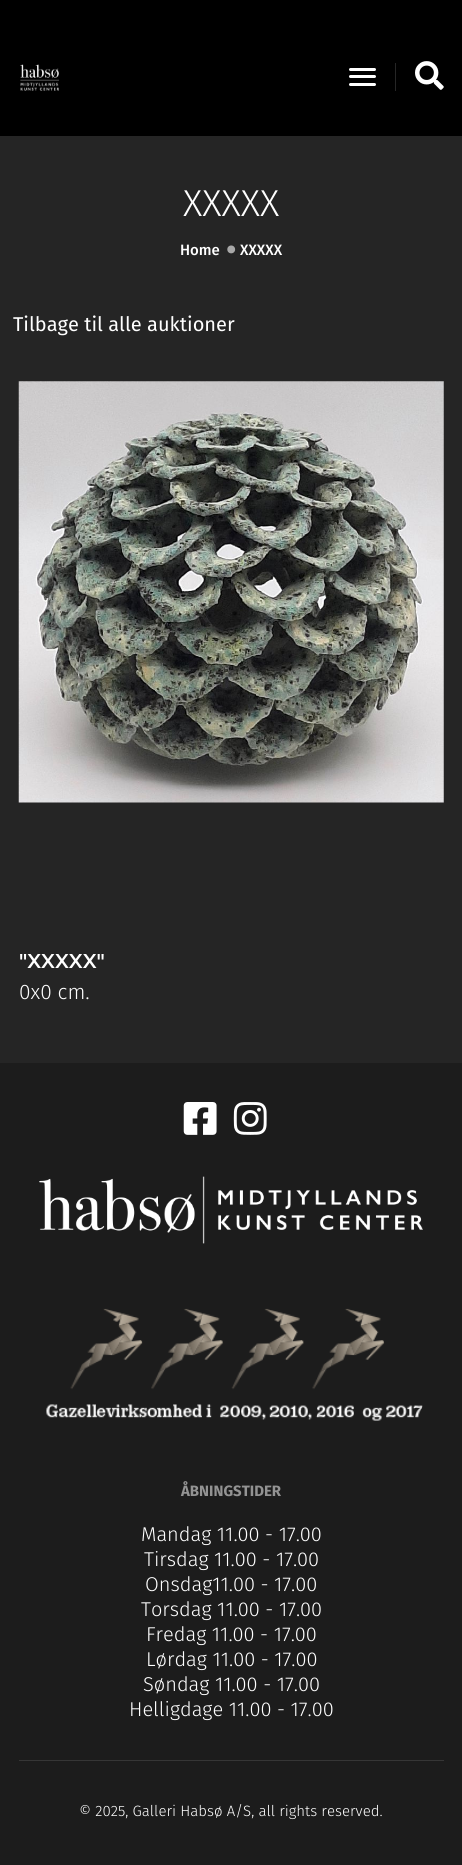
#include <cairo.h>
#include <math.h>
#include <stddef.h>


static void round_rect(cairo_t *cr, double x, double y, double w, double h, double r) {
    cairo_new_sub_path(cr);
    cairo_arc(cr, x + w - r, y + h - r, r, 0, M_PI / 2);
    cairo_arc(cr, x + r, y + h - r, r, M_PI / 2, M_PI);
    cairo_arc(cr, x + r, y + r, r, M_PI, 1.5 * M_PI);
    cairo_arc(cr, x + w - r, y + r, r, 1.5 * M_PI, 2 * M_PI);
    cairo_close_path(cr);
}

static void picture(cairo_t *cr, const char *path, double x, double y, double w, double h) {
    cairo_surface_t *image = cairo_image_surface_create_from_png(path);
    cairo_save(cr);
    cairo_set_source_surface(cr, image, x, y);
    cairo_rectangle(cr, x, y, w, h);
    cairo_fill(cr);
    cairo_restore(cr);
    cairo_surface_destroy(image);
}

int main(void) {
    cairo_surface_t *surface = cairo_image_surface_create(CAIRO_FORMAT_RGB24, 462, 1865);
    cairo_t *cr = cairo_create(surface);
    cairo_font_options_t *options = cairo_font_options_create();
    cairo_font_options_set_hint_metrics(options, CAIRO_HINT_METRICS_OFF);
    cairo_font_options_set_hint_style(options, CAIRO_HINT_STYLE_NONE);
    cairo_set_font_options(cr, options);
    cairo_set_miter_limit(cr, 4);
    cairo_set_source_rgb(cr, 0.145, 0.145, 0.145);
    cairo_paint(cr);
    cairo_set_source_rgb(cr, 0, 0, 0);
    cairo_rectangle(cr, 0, 0, 462, 136);
    cairo_fill(cr);
    picture(cr, "img1.png", 20, 64, 39, 27);
    cairo_set_source_rgb(cr, 1, 1, 1);
    round_rect(cr, 349, 68, 27, 3, 1.5);
    cairo_fill(cr);
    round_rect(cr, 349, 75, 27, 3, 1.5);
    cairo_fill(cr);
    round_rect(cr, 349, 83, 27, 3, 1.5);
    cairo_fill(cr);
    cairo_set_source_rgb(cr, 0.149, 0.149, 0.149);
    cairo_rectangle(cr, 395, 63, 1, 28);
    cairo_fill(cr);
    picture(cr, "img2.png", 415, 61, 29, 29);
    cairo_select_font_face(cr, "Fira Sans Light", CAIRO_FONT_SLANT_NORMAL, CAIRO_FONT_WEIGHT_NORMAL);
    cairo_set_font_size(cr, 37.5);
    cairo_set_source_rgb(cr, 1, 1, 1);
    cairo_move_to(cr, 183, 216);
    cairo_show_text(cr, "XXXXX");
    cairo_select_font_face(cr, "Fira Sans Medium", CAIRO_FONT_SLANT_NORMAL, CAIRO_FONT_WEIGHT_NORMAL);
    cairo_set_font_size(cr, 15);
    cairo_move_to(cr, 180, 255);
    cairo_show_text(cr, "Home");
    cairo_set_font_size(cr, 31);
    cairo_set_source_rgb(cr, 0.659, 0.659, 0.659);
    cairo_move_to(cr, 226, 260);
    cairo_show_text(cr, "•");
    cairo_set_font_size(cr, 15);
    cairo_set_source_rgb(cr, 1, 1, 1);
    cairo_move_to(cr, 240, 255);
    cairo_show_text(cr, "XXXXX");
    cairo_select_font_face(cr, "Fira Sans", CAIRO_FONT_SLANT_NORMAL, CAIRO_FONT_WEIGHT_NORMAL);
    cairo_set_font_size(cr, 20);
    cairo_move_to(cr, 13, 331);
    cairo_show_text(cr, "Tilbage til alle auktioner");
    picture(cr, "img3.png", 18, 381, 426, 422);
    cairo_select_font_face(cr, "Montserrat SemiBold", CAIRO_FONT_SLANT_NORMAL, CAIRO_FONT_WEIGHT_NORMAL);
    cairo_move_to(cr, 19, 968);
    cairo_show_text(cr, "\"XXXXX\"");
    cairo_select_font_face(cr, "Fira Sans Light", CAIRO_FONT_SLANT_NORMAL, CAIRO_FONT_WEIGHT_NORMAL);
    cairo_set_font_size(cr, 21);
    cairo_move_to(cr, 19, 999);
    cairo_show_text(cr, "0x0 cm.");
    cairo_set_source_rgb(cr, 0.11, 0.11, 0.11);
    cairo_rectangle(cr, 0, 1063, 462, 802);
    cairo_fill(cr);
    picture(cr, "img4.png", 183, 1102, 34, 33);
    picture(cr, "img5.png", 233, 1102, 34, 33);
    picture(cr, "img6.png", 39, 1176, 384, 68);
    picture(cr, "img7.png", 46, 1308, 377, 113);
    cairo_select_font_face(cr, "Fira Sans", CAIRO_FONT_SLANT_NORMAL, CAIRO_FONT_WEIGHT_BOLD);
    cairo_set_font_size(cr, 15);
    cairo_set_source_rgb(cr, 0.576, 0.576, 0.576);
    cairo_move_to(cr, 181, 1496);
    cairo_show_text(cr, "ÅBNINGSTIDER");
    cairo_select_font_face(cr, "Fira Sans Light", CAIRO_FONT_SLANT_NORMAL, CAIRO_FONT_WEIGHT_NORMAL);
    cairo_set_font_size(cr, 20);
    cairo_set_source_rgb(cr, 1, 1, 1);
    cairo_move_to(cr, 141, 1541);
    cairo_show_text(cr, "Mandag 11.00 - 17.00");
    cairo_move_to(cr, 144, 1566);
    cairo_show_text(cr, "Tirsdag 11.00 - 17.00");
    cairo_move_to(cr, 145, 1591);
    cairo_show_text(cr, "Onsdag11.00 - 17.00");
    cairo_move_to(cr, 141, 1616);
    cairo_show_text(cr, "Torsdag 11.00 - 17.00");
    cairo_move_to(cr, 146, 1641);
    cairo_show_text(cr, "Fredag 11.00 - 17.00");
    cairo_move_to(cr, 146, 1666);
    cairo_show_text(cr, "Lørdag 11.00 - 17.00");
    cairo_move_to(cr, 143, 1691);
    cairo_show_text(cr, "Søndag 11.00 - 17.00");
    cairo_move_to(cr, 129, 1716);
    cairo_show_text(cr, "Helligdage 11.00 - 17.00");
    cairo_set_source_rgb(cr, 0.212, 0.212, 0.212);
    cairo_rectangle(cr, 19, 1760, 425, 1);
    cairo_fill(cr);
    cairo_set_font_size(cr, 15);
    cairo_set_source_rgb(cr, 1, 1, 1);
    cairo_move_to(cr, 79, 1816);
    cairo_show_text(cr, "© 2025, Galleri Habsø A/S, all rights reserved.");
    cairo_surface_write_to_png(surface, "page.png");
    cairo_font_options_destroy(options);
    cairo_destroy(cr);
    cairo_surface_destroy(surface);
    return 0;
}
